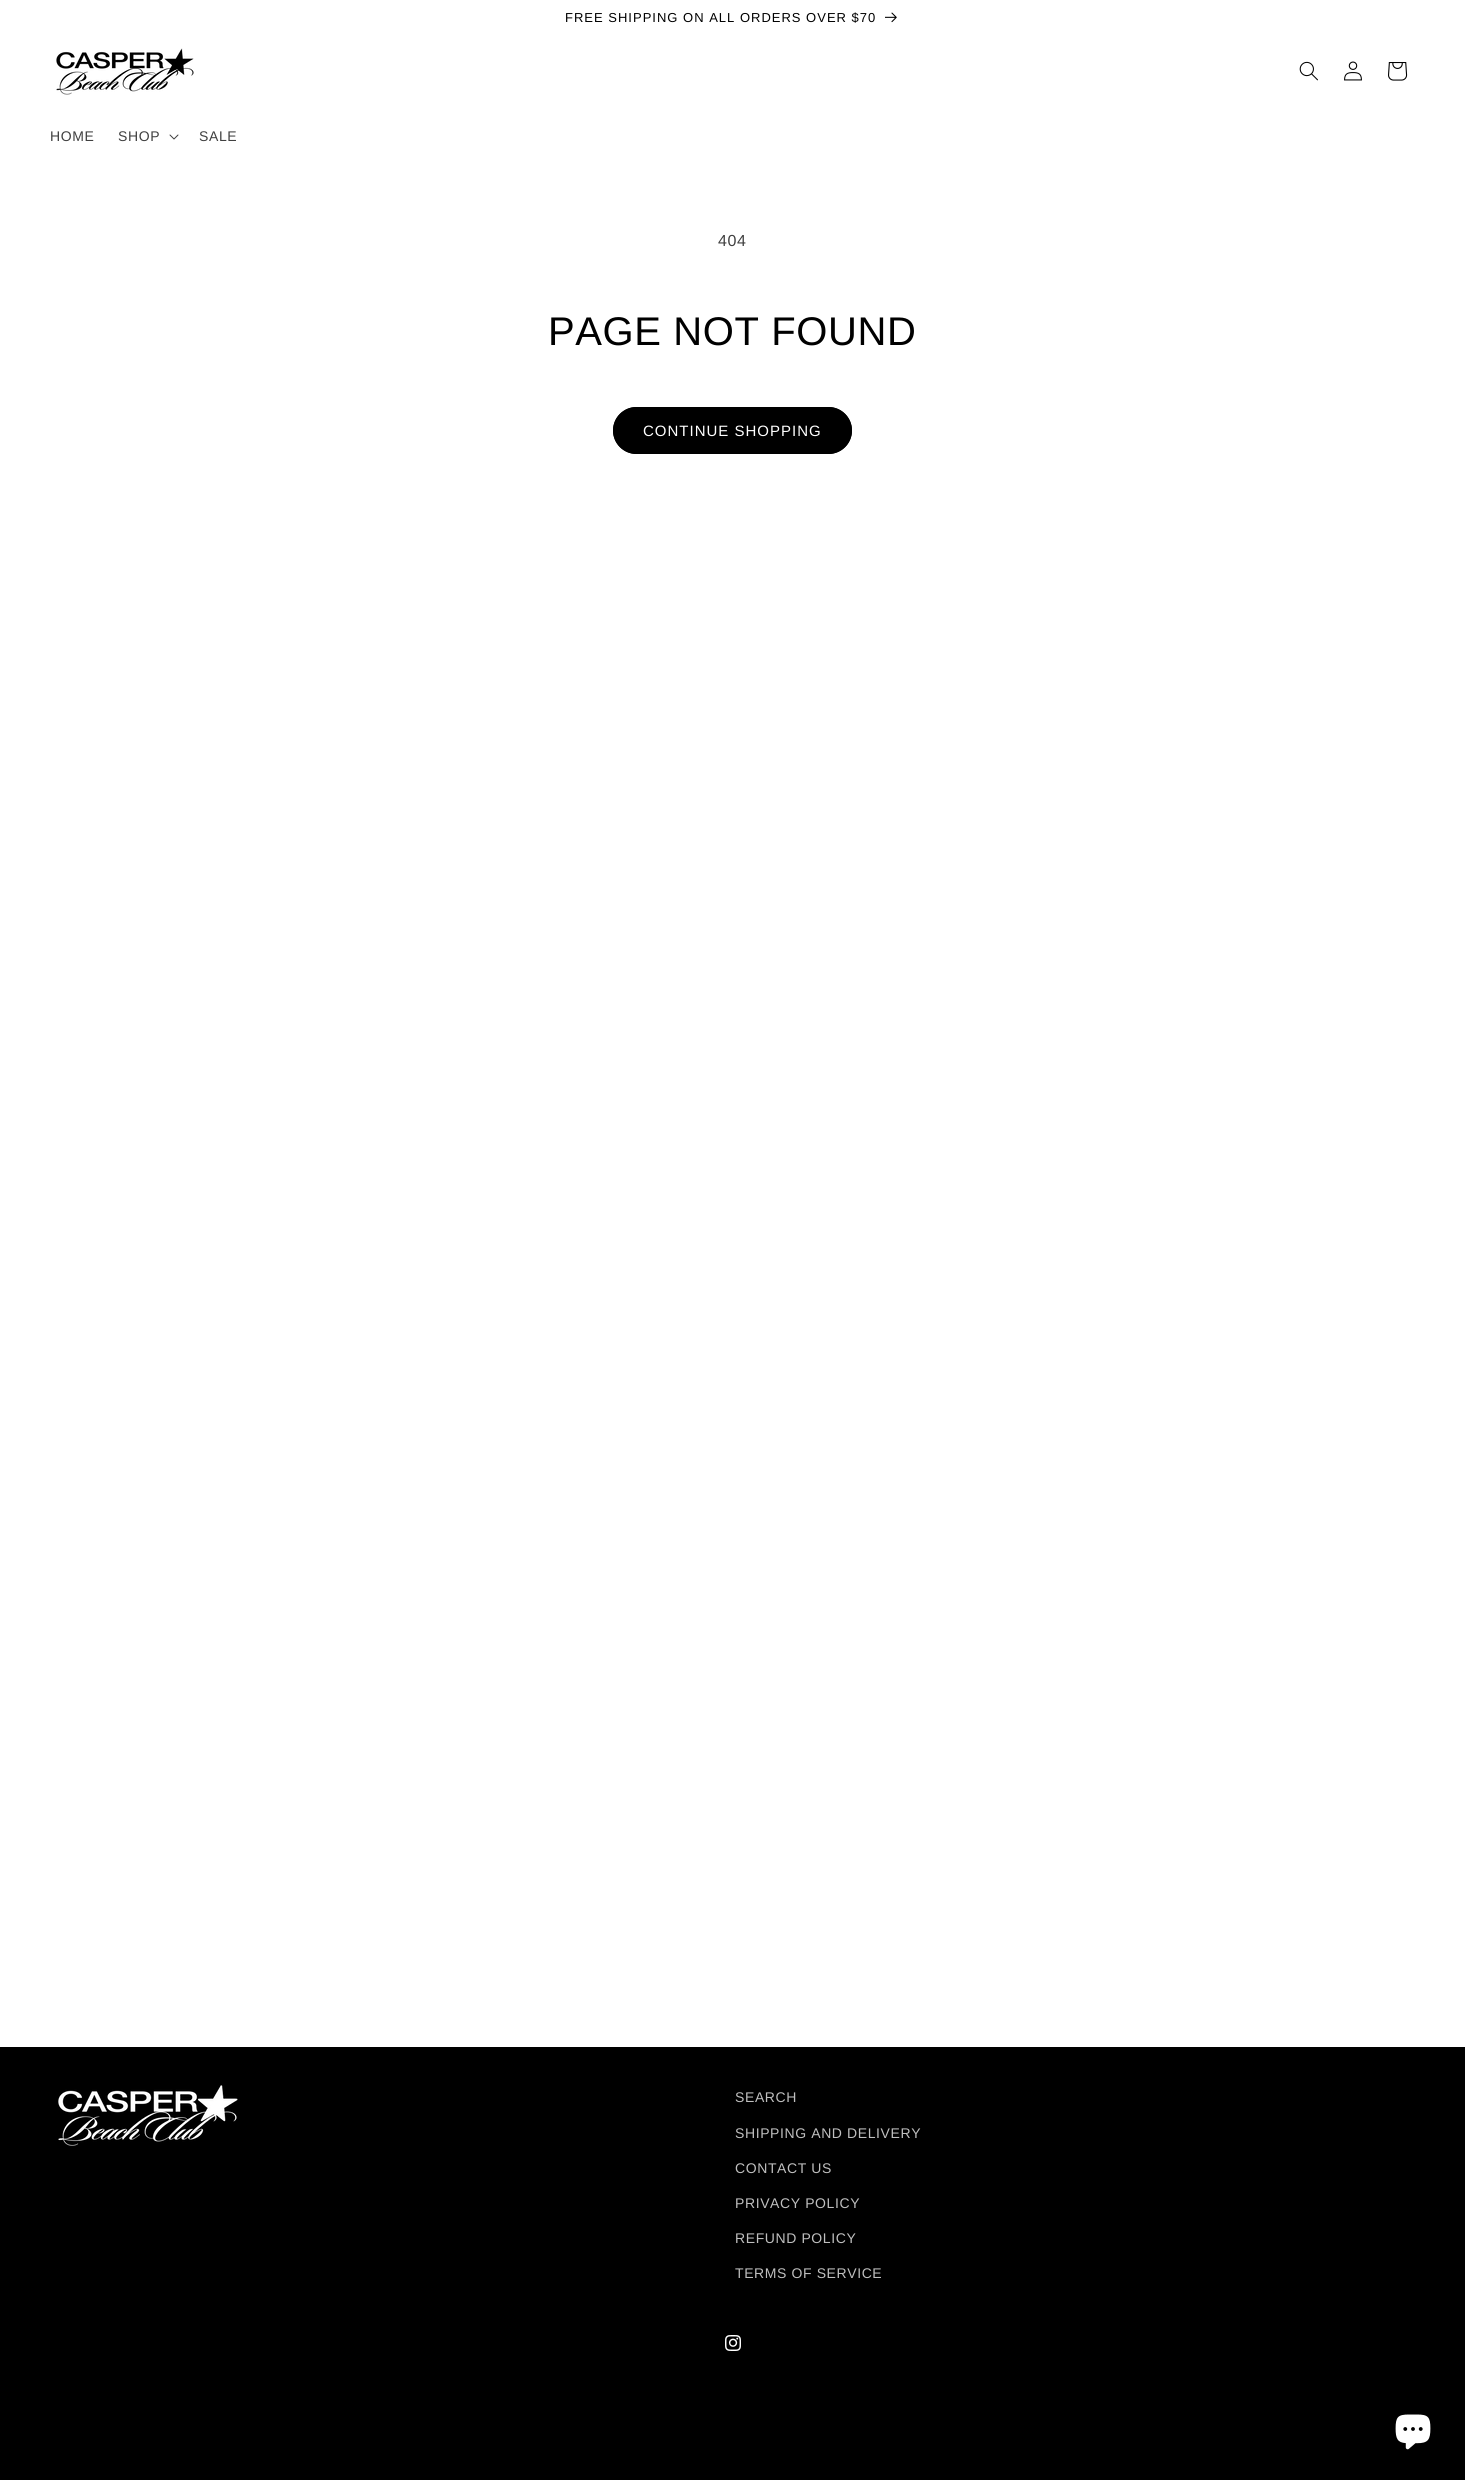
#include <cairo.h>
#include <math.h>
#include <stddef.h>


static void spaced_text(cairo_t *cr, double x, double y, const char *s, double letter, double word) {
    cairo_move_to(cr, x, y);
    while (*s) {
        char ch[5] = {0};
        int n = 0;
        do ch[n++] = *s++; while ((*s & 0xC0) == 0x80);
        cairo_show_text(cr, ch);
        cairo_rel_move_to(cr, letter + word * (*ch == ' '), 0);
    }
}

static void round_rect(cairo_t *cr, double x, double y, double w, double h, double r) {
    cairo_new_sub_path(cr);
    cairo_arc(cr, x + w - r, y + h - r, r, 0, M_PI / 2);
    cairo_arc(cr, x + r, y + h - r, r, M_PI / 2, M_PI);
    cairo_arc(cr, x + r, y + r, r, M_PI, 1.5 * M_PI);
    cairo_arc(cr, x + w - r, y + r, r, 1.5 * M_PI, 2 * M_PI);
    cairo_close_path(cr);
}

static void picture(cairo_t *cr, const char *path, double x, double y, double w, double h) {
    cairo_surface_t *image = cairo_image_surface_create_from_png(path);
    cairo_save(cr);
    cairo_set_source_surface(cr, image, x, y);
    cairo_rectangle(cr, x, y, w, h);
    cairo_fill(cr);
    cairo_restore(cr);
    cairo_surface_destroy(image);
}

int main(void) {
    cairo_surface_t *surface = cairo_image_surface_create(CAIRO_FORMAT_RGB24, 1465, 2480);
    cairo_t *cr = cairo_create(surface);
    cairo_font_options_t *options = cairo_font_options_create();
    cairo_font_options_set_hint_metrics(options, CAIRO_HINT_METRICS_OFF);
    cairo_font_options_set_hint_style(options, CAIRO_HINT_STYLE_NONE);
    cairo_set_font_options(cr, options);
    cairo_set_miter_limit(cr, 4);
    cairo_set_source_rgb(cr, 1, 1, 1);
    cairo_paint(cr);
    cairo_select_font_face(cr, "Liberation Sans", CAIRO_FONT_SLANT_NORMAL, CAIRO_FONT_WEIGHT_NORMAL);
    cairo_set_font_size(cr, 13);
    cairo_set_source_rgb(cr, 0, 0, 0);
    spaced_text(cr, 565, 22, "FREE SHIPPING ON ALL ORDERS OVER $70", 1, 0);
    picture(cr, "img1.png", 885, 12, 12, 11);
    picture(cr, "img2.png", 56, 48, 138, 47);
    picture(cr, "img3.png", 1299, 61, 19, 20);
    picture(cr, "img4.png", 1344, 61, 18, 20);
    picture(cr, "img5.png", 1388, 62, 20, 19);
    cairo_set_font_size(cr, 14);
    cairo_set_source_rgb(cr, 0.251, 0.251, 0.251);
    spaced_text(cr, 50, 141, "HOME", 0.6, 0);
    spaced_text(cr, 118, 141, "SHOP", 0.6, 0);
    picture(cr, "img6.png", 169, 134, 10, 6);
    spaced_text(cr, 199, 141, "SALE", 0.6, 0);
    cairo_set_font_size(cr, 16);
    spaced_text(cr, 718, 246, "404", 0.6, 0);
    cairo_set_font_size(cr, 40);
    cairo_set_source_rgb(cr, 0, 0, 0);
    spaced_text(cr, 548, 345, "PAGE NOT FOUND", 0.6, 0);
    round_rect(cr, 613, 407, 239, 47, 23.5);
    cairo_fill(cr);
    round_rect(cr, 613.5, 407.5, 238, 46, 23);
    cairo_set_line_width(cr, 1);
    cairo_stroke(cr);
    cairo_set_font_size(cr, 15);
    cairo_set_source_rgb(cr, 1, 1, 1);
    spaced_text(cr, 643, 436, "CONTINUE SHOPPING", 1, 0);
    cairo_set_source_rgb(cr, 0, 0, 0);
    cairo_rectangle(cr, 0, 2047, 1465, 433);
    cairo_fill(cr);
    picture(cr, "img7.png", 58, 2085, 180, 61);
    cairo_set_font_size(cr, 14);
    cairo_set_source_rgb(cr, 0.749, 0.749, 0.749);
    spaced_text(cr, 735, 2102, "SEARCH", 0.6, 0);
    spaced_text(cr, 735, 2138, "SHIPPING AND DELIVERY", 0.6, 0);
    spaced_text(cr, 735, 2173, "CONTACT US", 0.6, 0);
    spaced_text(cr, 735, 2208, "PRIVACY POLICY", 0.6, 0);
    spaced_text(cr, 735, 2243, "REFUND POLICY", 0.6, 0);
    spaced_text(cr, 735, 2278, "TERMS OF SERVICE", 0.6, 0);
    picture(cr, "img8.png", 725, 2335, 16, 16);
    picture(cr, "img9.png", 1395, 2414, 36, 36);
    cairo_surface_write_to_png(surface, "page.png");
    cairo_font_options_destroy(options);
    cairo_destroy(cr);
    cairo_surface_destroy(surface);
    return 0;
}
